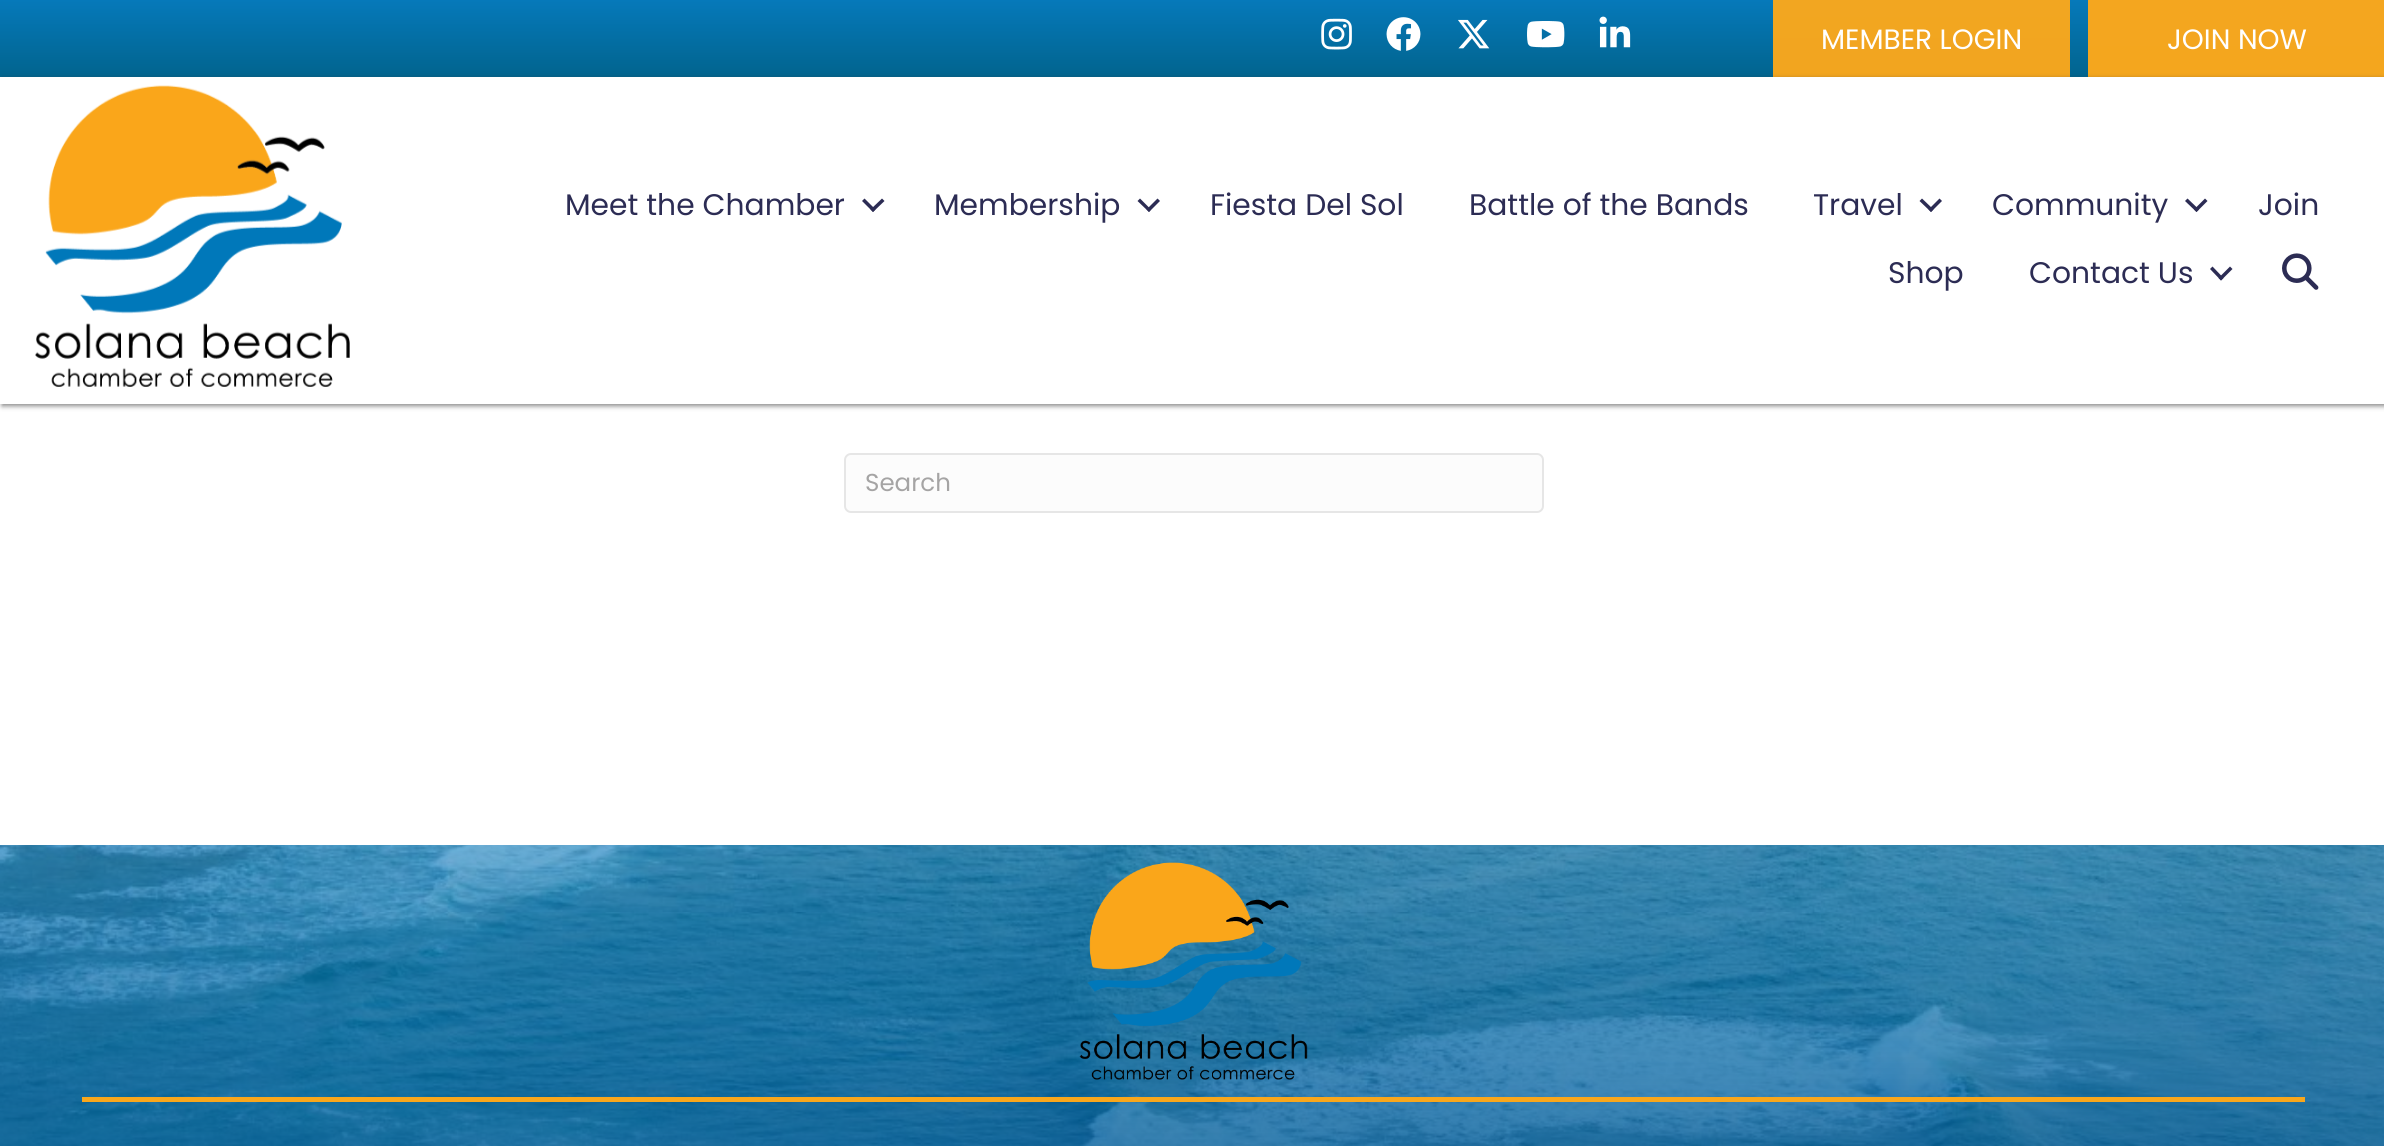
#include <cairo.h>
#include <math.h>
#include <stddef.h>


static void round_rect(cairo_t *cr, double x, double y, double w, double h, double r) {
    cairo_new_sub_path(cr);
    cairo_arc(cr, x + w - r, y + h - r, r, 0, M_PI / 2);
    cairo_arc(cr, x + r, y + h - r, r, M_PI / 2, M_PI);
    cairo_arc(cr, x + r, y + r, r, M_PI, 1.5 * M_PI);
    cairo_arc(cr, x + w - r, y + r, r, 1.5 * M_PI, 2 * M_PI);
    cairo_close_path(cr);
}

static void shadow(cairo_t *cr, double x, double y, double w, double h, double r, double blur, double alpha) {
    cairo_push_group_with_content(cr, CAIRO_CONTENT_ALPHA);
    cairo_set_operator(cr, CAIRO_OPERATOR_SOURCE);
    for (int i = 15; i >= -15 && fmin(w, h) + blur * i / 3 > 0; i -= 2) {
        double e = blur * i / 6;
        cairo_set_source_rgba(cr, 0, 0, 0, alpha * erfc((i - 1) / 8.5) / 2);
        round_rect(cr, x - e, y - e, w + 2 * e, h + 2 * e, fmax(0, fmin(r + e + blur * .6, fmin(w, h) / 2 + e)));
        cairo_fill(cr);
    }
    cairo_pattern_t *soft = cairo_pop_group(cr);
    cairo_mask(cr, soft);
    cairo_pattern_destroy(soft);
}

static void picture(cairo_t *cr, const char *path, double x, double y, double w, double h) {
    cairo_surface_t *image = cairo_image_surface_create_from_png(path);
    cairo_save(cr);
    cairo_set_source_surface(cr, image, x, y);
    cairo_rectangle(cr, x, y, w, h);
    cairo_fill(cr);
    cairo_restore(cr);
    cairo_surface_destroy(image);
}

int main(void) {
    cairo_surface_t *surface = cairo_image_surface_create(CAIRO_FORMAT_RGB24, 2384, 1146);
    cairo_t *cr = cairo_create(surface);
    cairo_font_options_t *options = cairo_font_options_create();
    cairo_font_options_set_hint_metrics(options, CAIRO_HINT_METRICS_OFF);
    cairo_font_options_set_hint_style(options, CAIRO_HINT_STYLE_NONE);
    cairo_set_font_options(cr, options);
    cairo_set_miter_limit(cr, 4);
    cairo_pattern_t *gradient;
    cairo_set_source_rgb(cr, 1, 1, 1);
    cairo_paint(cr);
    gradient = cairo_pattern_create_linear(1193, 0, 1193, 77);
    cairo_pattern_add_color_stop_rgba(gradient, 0, 0.024, 0.475, 0.729, 1);
    cairo_pattern_add_color_stop_rgba(gradient, 1, 0.004, 0.392, 0.557, 1);
    cairo_set_source(cr, gradient);
    cairo_pattern_destroy(gradient);
    cairo_rectangle(cr, 0, 0, 2088, 77);
    cairo_fill(cr);
    gradient = cairo_pattern_create_linear(1193, 0, 1193, 77);
    cairo_pattern_add_color_stop_rgba(gradient, 0, 0.957, 0.651, 0.122, 1);
    cairo_pattern_add_color_stop_rgba(gradient, 1, 0.957, 0.651, 0.118, 1);
    cairo_set_source(cr, gradient);
    cairo_pattern_destroy(gradient);
    cairo_rectangle(cr, 2088, 0, 296, 77);
    cairo_fill(cr);
    gradient = cairo_pattern_create_linear(1193, 0, 1193, 77);
    cairo_pattern_add_color_stop_rgba(gradient, 0, 0.949, 0.651, 0.129, 1);
    cairo_pattern_add_color_stop_rgba(gradient, 1, 0.949, 0.647, 0.122, 1);
    cairo_set_source(cr, gradient);
    cairo_pattern_destroy(gradient);
    cairo_rectangle(cr, 1773, 0, 297, 77);
    cairo_fill(cr);
    picture(cr, "img1.png", 1321, 18, 31, 32);
    picture(cr, "img2.png", 1386, 17, 35, 34);
    picture(cr, "img3.png", 1458, 19, 32, 30);
    picture(cr, "img4.png", 1527, 21, 38, 27);
    picture(cr, "img5.png", 1599, 16, 32, 32);
    cairo_select_font_face(cr, "Poppins", CAIRO_FONT_SLANT_NORMAL, CAIRO_FONT_WEIGHT_NORMAL);
    cairo_set_font_size(cr, 28);
    cairo_set_source_rgb(cr, 1, 1, 1);
    cairo_move_to(cr, 1821, 49);
    cairo_show_text(cr, "MEMBER LOGIN");
    cairo_move_to(cr, 2167, 49);
    cairo_show_text(cr, "JOIN NOW");
    cairo_save(cr);
    cairo_set_fill_rule(cr, CAIRO_FILL_RULE_EVEN_ODD);
    cairo_new_path(cr);
    cairo_move_to(cr, 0, 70);
    cairo_line_to(cr, 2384, 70);
    cairo_line_to(cr, 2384, 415);
    cairo_line_to(cr, 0, 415);
    cairo_close_path(cr);
    cairo_move_to(cr, 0, 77);
    cairo_line_to(cr, 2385, 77);
    cairo_line_to(cr, 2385, 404);
    cairo_line_to(cr, 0, 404);
    cairo_close_path(cr);
    cairo_clip(cr);
    cairo_set_source_rgb(cr, 0.2, 0.2, 0.2);
    shadow(cr, 2, 79, 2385, 327, 0, 2.5, 0.6);
    cairo_restore(cr);
    picture(cr, "img6.png", 35, 85, 315, 302);
    cairo_set_font_size(cr, 29.75);
    cairo_set_source_rgb(cr, 0.173, 0.173, 0.329);
    cairo_move_to(cr, 565, 215);
    cairo_show_text(cr, "Meet the Chamber");
    cairo_new_path(cr);
    cairo_move_to(cr, 882, 198.5);
    cairo_line_to(cr, 884.5, 201);
    cairo_line_to(cr, 873, 212);
    cairo_line_to(cr, 870.5, 209.5);
    cairo_close_path(cr);
    cairo_fill(cr);
    cairo_new_path(cr);
    cairo_move_to(cr, 864.5, 198.5);
    cairo_line_to(cr, 875.5, 209.5);
    cairo_line_to(cr, 873, 212);
    cairo_line_to(cr, 862, 201);
    cairo_close_path(cr);
    cairo_fill(cr);
    cairo_move_to(cr, 934, 215);
    cairo_show_text(cr, "Membership");
    cairo_new_path(cr);
    cairo_move_to(cr, 1157.5, 198.5);
    cairo_line_to(cr, 1160, 201);
    cairo_line_to(cr, 1149, 212);
    cairo_line_to(cr, 1146.5, 209.5);
    cairo_close_path(cr);
    cairo_fill(cr);
    cairo_new_path(cr);
    cairo_move_to(cr, 1140, 198.5);
    cairo_line_to(cr, 1151, 209.5);
    cairo_line_to(cr, 1149, 212);
    cairo_line_to(cr, 1137.5, 201);
    cairo_close_path(cr);
    cairo_fill(cr);
    cairo_move_to(cr, 1210, 215);
    cairo_show_text(cr, "Fiesta Del Sol");
    cairo_move_to(cr, 1469, 215);
    cairo_show_text(cr, "Battle of the Bands");
    cairo_move_to(cr, 1813, 215);
    cairo_show_text(cr, "Travel");
    cairo_new_path(cr);
    cairo_move_to(cr, 1939.5, 198.5);
    cairo_line_to(cr, 1942, 201);
    cairo_line_to(cr, 1931, 212);
    cairo_line_to(cr, 1928.5, 209.5);
    cairo_close_path(cr);
    cairo_fill(cr);
    cairo_new_path(cr);
    cairo_move_to(cr, 1922, 198.5);
    cairo_line_to(cr, 1933.5, 209.5);
    cairo_line_to(cr, 1931, 212);
    cairo_line_to(cr, 1919.5, 201);
    cairo_close_path(cr);
    cairo_fill(cr);
    cairo_move_to(cr, 1992, 215);
    cairo_show_text(cr, "Community");
    cairo_new_path(cr);
    cairo_move_to(cr, 2205, 198.5);
    cairo_line_to(cr, 2207.5, 201);
    cairo_line_to(cr, 2196.5, 212);
    cairo_line_to(cr, 2194, 209.5);
    cairo_close_path(cr);
    cairo_fill(cr);
    cairo_new_path(cr);
    cairo_move_to(cr, 2187.5, 198.5);
    cairo_line_to(cr, 2199, 209.5);
    cairo_line_to(cr, 2196.5, 212);
    cairo_line_to(cr, 2185, 201);
    cairo_close_path(cr);
    cairo_fill(cr);
    cairo_move_to(cr, 2258, 215);
    cairo_show_text(cr, "Join");
    cairo_move_to(cr, 1888, 283);
    cairo_show_text(cr, "Shop");
    cairo_move_to(cr, 2029, 283);
    cairo_show_text(cr, "Contact Us");
    cairo_new_path(cr);
    cairo_move_to(cr, 2230, 266.5);
    cairo_line_to(cr, 2232.5, 269);
    cairo_line_to(cr, 2221, 280.5);
    cairo_line_to(cr, 2218.5, 278);
    cairo_close_path(cr);
    cairo_fill(cr);
    cairo_new_path(cr);
    cairo_move_to(cr, 2212.5, 266.5);
    cairo_line_to(cr, 2223.5, 278);
    cairo_line_to(cr, 2221, 280.5);
    cairo_line_to(cr, 2210, 269);
    cairo_close_path(cr);
    cairo_fill(cr);
    picture(cr, "img7.png", 2282, 253, 37, 37);
    cairo_set_source_rgb(cr, 0.988, 0.988, 0.988);
    round_rect(cr, 845, 454, 698, 58, 6);
    cairo_fill_preserve(cr);
    cairo_set_source_rgb(cr, 0.902, 0.902, 0.902);
    cairo_stroke(cr);
    cairo_set_font_size(cr, 24.5);
    cairo_set_source_rgb(cr, 0.647, 0.643, 0.643);
    cairo_move_to(cr, 865, 491);
    cairo_show_text(cr, "Search");
    picture(cr, "img8.png", 0, 845, 2384, 301);
    gradient = cairo_pattern_create_linear(1193, 845, 1193, 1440);
    cairo_pattern_add_color_stop_rgba(gradient, 0, 0.024, 0.475, 0.729, 0.57);
    cairo_pattern_add_color_stop_rgba(gradient, 1, 0.004, 0.282, 0.498, 1);
    cairo_set_source(cr, gradient);
    cairo_pattern_destroy(gradient);
    cairo_rectangle(cr, 0, 845, 2384, 301);
    cairo_fill(cr);
    picture(cr, "img9.png", 1079, 862, 229, 218);
    cairo_set_source_rgb(cr, 0.976, 0.655, 0.11);
    cairo_rectangle(cr, 82, 1097, 2223, 5);
    cairo_fill(cr);
    cairo_surface_write_to_png(surface, "page.png");
    cairo_font_options_destroy(options);
    cairo_destroy(cr);
    cairo_surface_destroy(surface);
    return 0;
}
